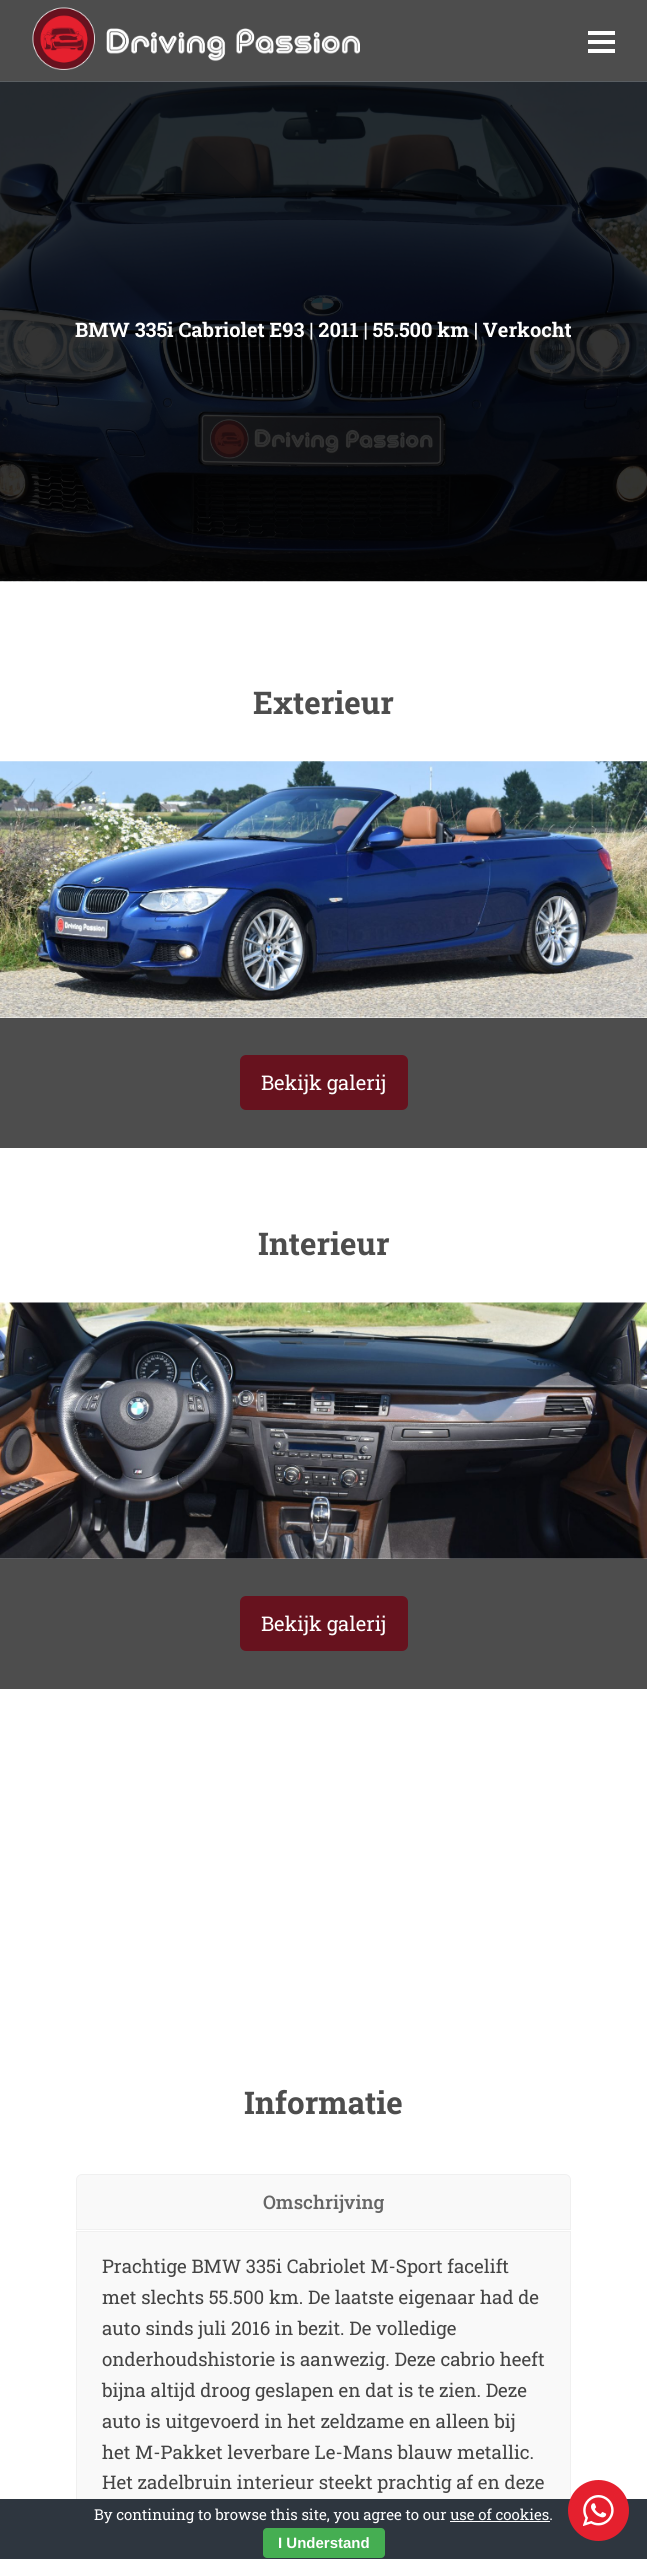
#include <cairo.h>
#include <math.h>
#include <stddef.h>


static void round_rect(cairo_t *cr, double x, double y, double w, double h, double r) {
    cairo_new_sub_path(cr);
    cairo_arc(cr, x + w - r, y + h - r, r, 0, M_PI / 2);
    cairo_arc(cr, x + r, y + h - r, r, M_PI / 2, M_PI);
    cairo_arc(cr, x + r, y + r, r, M_PI, 1.5 * M_PI);
    cairo_arc(cr, x + w - r, y + r, r, 1.5 * M_PI, 2 * M_PI);
    cairo_close_path(cr);
}

static void picture(cairo_t *cr, const char *path, double x, double y, double w, double h) {
    cairo_surface_t *image = cairo_image_surface_create_from_png(path);
    cairo_save(cr);
    cairo_set_source_surface(cr, image, x, y);
    cairo_rectangle(cr, x, y, w, h);
    cairo_fill(cr);
    cairo_restore(cr);
    cairo_surface_destroy(image);
}

int main(void) {
    cairo_surface_t *surface = cairo_image_surface_create(CAIRO_FORMAT_RGB24, 647, 2559);
    cairo_t *cr = cairo_create(surface);
    cairo_font_options_t *options = cairo_font_options_create();
    cairo_font_options_set_hint_metrics(options, CAIRO_HINT_METRICS_OFF);
    cairo_font_options_set_hint_style(options, CAIRO_HINT_STYLE_NONE);
    cairo_set_font_options(cr, options);
    cairo_set_miter_limit(cr, 4);
    cairo_set_source_rgb(cr, 1, 1, 1);
    cairo_paint(cr);
    cairo_set_source_rgb(cr, 0.302, 0.302, 0.302);
    cairo_rectangle(cr, 0, 0, 647, 81);
    cairo_fill(cr);
    picture(cr, "img1.png", 32, 7, 328, 63);
    cairo_set_source_rgb(cr, 1, 1, 1);
    cairo_rectangle(cr, 588, 40, 27, 4);
    cairo_fill(cr);
    cairo_rectangle(cr, 588, 31, 27, 4);
    cairo_fill(cr);
    cairo_rectangle(cr, 588, 49, 27, 4);
    cairo_fill(cr);
    picture(cr, "img2.png", 0, 81, 647, 501);
    cairo_select_font_face(cr, "Roboto Slab", CAIRO_FONT_SLANT_NORMAL, CAIRO_FONT_WEIGHT_BOLD);
    cairo_set_font_size(cr, 20);
    cairo_move_to(cr, 75, 337);
    cairo_show_text(cr, "BMW 335i Cabriolet E93 | 2011 | 55.500 km | Verkocht");
    cairo_set_font_size(cr, 31.25);
    cairo_set_source_rgb(cr, 0.302, 0.302, 0.302);
    cairo_move_to(cr, 253, 714);
    cairo_show_text(cr, "Exterieur");
    picture(cr, "img3.png", 0, 761, 647, 257);
    cairo_rectangle(cr, 0, 1018, 647, 130);
    cairo_fill(cr);
    cairo_set_source_rgb(cr, 0.404, 0.071, 0.118);
    round_rect(cr, 240, 1055, 168, 55, 6);
    cairo_fill(cr);
    cairo_select_font_face(cr, "Roboto Slab", CAIRO_FONT_SLANT_NORMAL, CAIRO_FONT_WEIGHT_NORMAL);
    cairo_set_font_size(cr, 20.25);
    cairo_set_source_rgb(cr, 1, 1, 1);
    cairo_move_to(cr, 261, 1090);
    cairo_show_text(cr, "Bekijk galerij");
    cairo_select_font_face(cr, "Roboto Slab", CAIRO_FONT_SLANT_NORMAL, CAIRO_FONT_WEIGHT_BOLD);
    cairo_set_font_size(cr, 31.25);
    cairo_set_source_rgb(cr, 0.302, 0.302, 0.302);
    cairo_move_to(cr, 258, 1255);
    cairo_show_text(cr, "Interieur");
    picture(cr, "img4.png", 0, 1302, 647, 257);
    cairo_rectangle(cr, 0, 1559, 647, 130);
    cairo_fill(cr);
    cairo_set_source_rgb(cr, 0.404, 0.071, 0.118);
    round_rect(cr, 240, 1596, 168, 55, 6);
    cairo_fill(cr);
    cairo_select_font_face(cr, "Roboto Slab", CAIRO_FONT_SLANT_NORMAL, CAIRO_FONT_WEIGHT_NORMAL);
    cairo_set_font_size(cr, 20.25);
    cairo_set_source_rgb(cr, 1, 1, 1);
    cairo_move_to(cr, 261, 1631);
    cairo_show_text(cr, "Bekijk galerij");
    cairo_select_font_face(cr, "Roboto Slab", CAIRO_FONT_SLANT_NORMAL, CAIRO_FONT_WEIGHT_BOLD);
    cairo_set_font_size(cr, 31.25);
    cairo_set_source_rgb(cr, 0.302, 0.302, 0.302);
    cairo_move_to(cr, 244, 2114);
    cairo_show_text(cr, "Informatie");
    cairo_set_source_rgb(cr, 0.973, 0.973, 0.973);
    cairo_new_path(cr);
    cairo_move_to(cr, 82, 2174.5);
    cairo_line_to(cr, 565, 2174.5);
    cairo_curve_to(cr, 568, 2174.5, 570.5, 2177, 570.5, 2180);
    cairo_line_to(cr, 570.5, 2229.5);
    cairo_line_to(cr, 76.5, 2229.5);
    cairo_line_to(cr, 76.5, 2180);
    cairo_curve_to(cr, 76.5, 2177, 79, 2174.5, 82, 2174.5);
    cairo_close_path(cr);
    cairo_fill_preserve(cr);
    cairo_set_source_rgb(cr, 0.941, 0.941, 0.941);
    cairo_set_line_width(cr, 1);
    cairo_stroke(cr);
    cairo_select_font_face(cr, "Roboto Slab Medium", CAIRO_FONT_SLANT_NORMAL, CAIRO_FONT_WEIGHT_NORMAL);
    cairo_set_font_size(cr, 18.75);
    cairo_set_source_rgb(cr, 0.4, 0.4, 0.4);
    cairo_move_to(cr, 263, 2209);
    cairo_show_text(cr, "Omschrijving");
    cairo_set_source_rgb(cr, 0.973, 0.973, 0.973);
    cairo_rectangle(cr, 77, 2232, 493, 267);
    cairo_fill(cr);
    cairo_rectangle(cr, 76.5, 2231.5, 494, 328);
    cairo_set_source_rgb(cr, 0.941, 0.941, 0.941);
    cairo_stroke(cr);
    cairo_select_font_face(cr, "Roboto Slab", CAIRO_FONT_SLANT_NORMAL, CAIRO_FONT_WEIGHT_NORMAL);
    cairo_set_source_rgb(cr, 0.267, 0.267, 0.267);
    cairo_move_to(cr, 102, 2273);
    cairo_show_text(cr, "Prachtige BMW 335i Cabriolet M-Sport facelift");
    cairo_move_to(cr, 102, 2304);
    cairo_show_text(cr, "met slechts 55.500 km. De laatste eigenaar had de");
    cairo_move_to(cr, 102, 2335);
    cairo_show_text(cr, "auto sinds juli 2016 in bezit. De volledige");
    cairo_move_to(cr, 102, 2366);
    cairo_show_text(cr, "onderhoudshistorie is aanwezig. Deze cabrio heeft");
    cairo_move_to(cr, 102, 2397);
    cairo_show_text(cr, "bijna altijd droog geslapen en dat is te zien. Deze");
    cairo_move_to(cr, 102, 2428);
    cairo_show_text(cr, "auto is uitgevoerd in het zeldzame en alleen bij");
    cairo_move_to(cr, 102, 2459);
    cairo_show_text(cr, "het M-Pakket leverbare Le-Mans blauw metallic.");
    cairo_move_to(cr, 102, 2489);
    cairo_show_text(cr, "Het zadelbruin interieur steekt prachtig af en deze");
    cairo_set_source_rgb(cr, 0.18, 0.212, 0.247);
    cairo_rectangle(cr, 0, 2499, 647, 60);
    cairo_fill(cr);
    cairo_set_font_size(cr, 15);
    cairo_set_source_rgb(cr, 1, 1, 1);
    cairo_move_to(cr, 94, 2520);
    cairo_show_text(cr, "By continuing to browse this site, you agree to our use of cookies.");
    cairo_rectangle(cr, 450, 2521, 100, 1);
    cairo_fill(cr);
    cairo_set_source_rgb(cr, 0.271, 0.682, 0.322);
    round_rect(cr, 263, 2528, 122, 30, 4);
    cairo_fill(cr);
    cairo_select_font_face(cr, "Liberation Sans", CAIRO_FONT_SLANT_NORMAL, CAIRO_FONT_WEIGHT_BOLD);
    cairo_set_source_rgb(cr, 1, 1, 1);
    cairo_move_to(cr, 278, 2548);
    cairo_show_text(cr, "I Understand");
    cairo_set_source_rgb(cr, 0.898, 0.125, 0.18);
    cairo_new_path(cr);
    cairo_arc(cr, 598.5, 2510.5, 30.5, 0, 2 * M_PI);
    cairo_fill(cr);
    picture(cr, "img5.png", 583, 2495, 31, 31);
    cairo_surface_write_to_png(surface, "page.png");
    cairo_font_options_destroy(options);
    cairo_destroy(cr);
    cairo_surface_destroy(surface);
    return 0;
}
